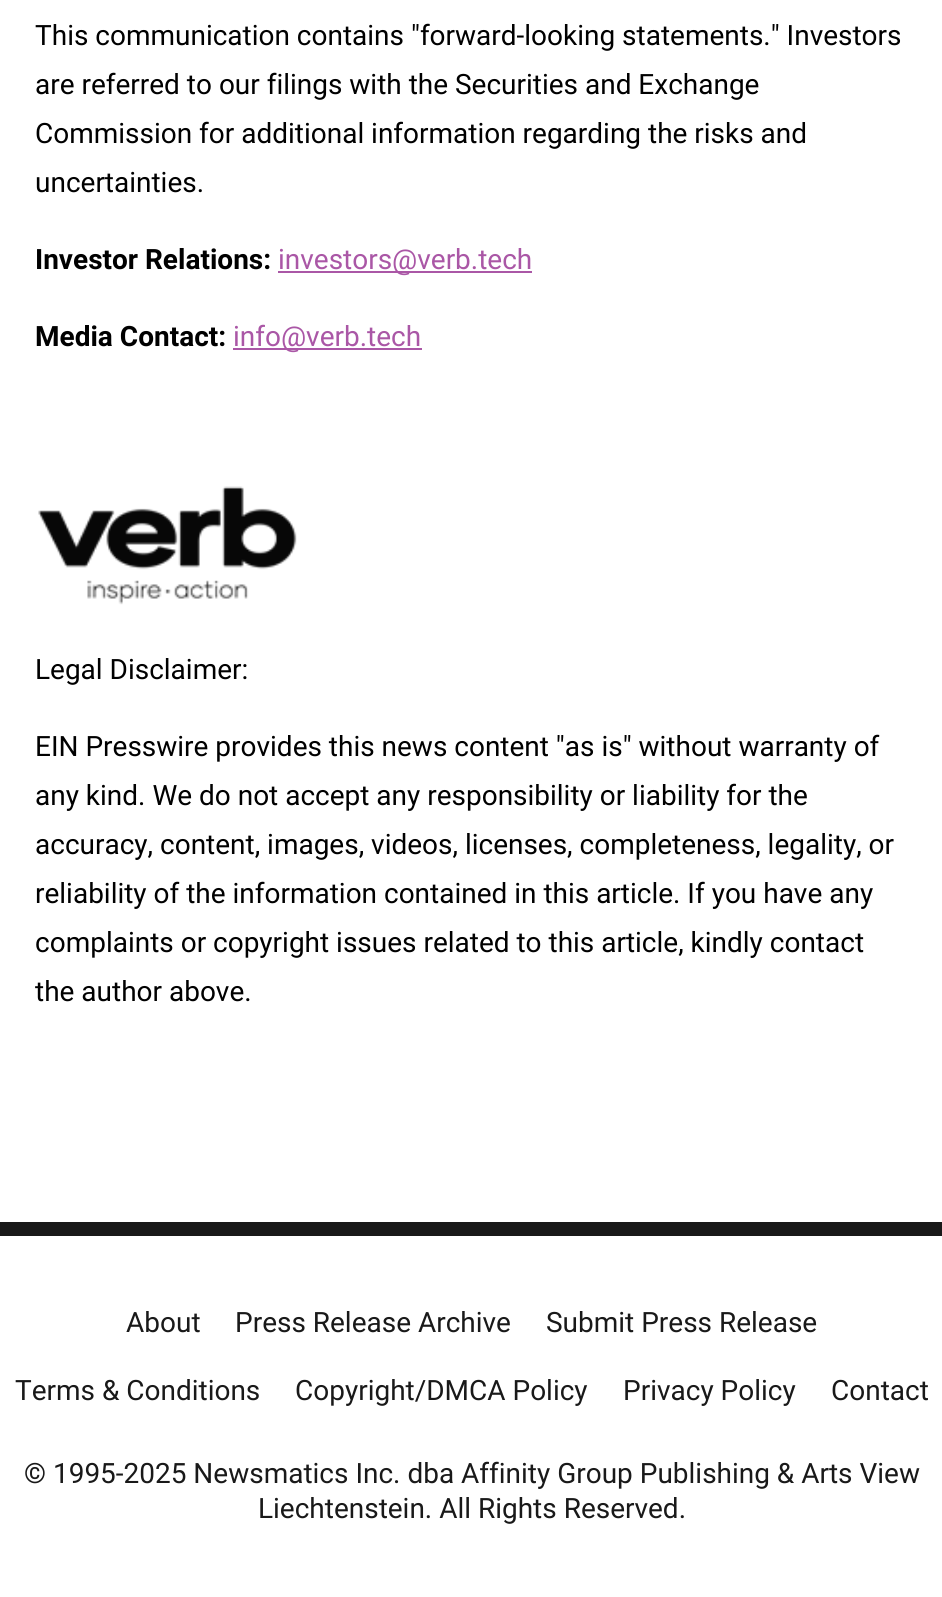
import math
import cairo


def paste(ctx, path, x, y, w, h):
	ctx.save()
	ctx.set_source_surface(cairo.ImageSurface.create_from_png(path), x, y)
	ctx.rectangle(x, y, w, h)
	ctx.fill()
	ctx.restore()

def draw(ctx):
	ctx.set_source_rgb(1, 1, 1)
	ctx.paint()
	ctx.select_font_face('Roboto')
	ctx.set_font_size(28)
	ctx.set_source_rgb(0, 0, 0)
	for x, y, s in [
		(35, 45, 'This communication contains "forward-looking statements." Investors'),
		(35, 94, 'are referred to our filings with the Securities and Exchange'),
		(35, 143, 'Commission for additional information regarding the risks and'),
		(35, 192, 'uncertainties.'),
	]:
		ctx.move_to(x, y)
		ctx.show_text(s)
	ctx.select_font_face('Roboto', cairo.FONT_SLANT_NORMAL, cairo.FONT_WEIGHT_BOLD)
	ctx.move_to(35, 269)
	ctx.show_text('Investor Relations:')
	ctx.set_source_rgb(0.667, 0.341, 0.651)
	ctx.rectangle(278, 271, 254, 2)
	ctx.fill()
	ctx.select_font_face('Roboto')
	ctx.move_to(278, 269)
	ctx.show_text('investors@verb.tech')
	ctx.select_font_face('Roboto', cairo.FONT_SLANT_NORMAL, cairo.FONT_WEIGHT_BOLD)
	ctx.set_source_rgb(0, 0, 0)
	ctx.move_to(35, 346)
	ctx.show_text('Media Contact:')
	ctx.set_source_rgb(0.667, 0.341, 0.651)
	ctx.rectangle(233, 348, 189, 2)
	ctx.fill()
	ctx.select_font_face('Roboto')
	ctx.move_to(233, 346)
	ctx.show_text('info@verb.tech')
	paste(ctx, 'media/1.png', 38, 486, 259, 119)
	ctx.set_source_rgb(0, 0, 0)
	for x, y, s in [
		(35, 679, 'Legal Disclaimer:'),
		(35, 756, 'EIN Presswire provides this news content "as is" without warranty of'),
		(35, 805, 'any kind. We do not accept any responsibility or liability for the'),
		(35, 854, 'accuracy, content, images, videos, licenses, completeness, legality, or'),
		(35, 903, 'reliability of the information contained in this article. If you have any'),
		(35, 952, 'complaints or copyright issues related to this article, kindly contact'),
		(35, 1001, 'the author above.'),
	]:
		ctx.move_to(x, y)
		ctx.show_text(s)
	ctx.set_source_rgb(0.098, 0.098, 0.098)
	ctx.rectangle(0, 1222, 942, 14)
	ctx.fill()
	for x, y, s in [
		(126, 1332, 'About'),
		(235, 1332, 'Press Release Archive'),
		(546, 1332, 'Submit Press Release'),
		(15, 1400, 'Terms & Conditions'),
		(295, 1400, 'Copyright/DMCA Policy'),
		(623, 1400, 'Privacy Policy'),
		(831, 1400, 'Contact'),
		(24, 1483, '© 1995-2025 Newsmatics Inc. dba Affinity Group Publishing & Arts View'),
		(258, 1518, 'Liechtenstein. All Rights Reserved.'),
	]:
		ctx.move_to(x, y)
		ctx.show_text(s)


surface = cairo.ImageSurface(cairo.FORMAT_RGB24, 942, 1597)
ctx = cairo.Context(surface)
options = cairo.FontOptions()
options.set_hint_metrics(cairo.HINT_METRICS_OFF)
options.set_hint_style(cairo.HINT_STYLE_NONE)
ctx.set_font_options(options)
ctx.set_miter_limit(4)
draw(ctx)
surface.write_to_png('image.png')
